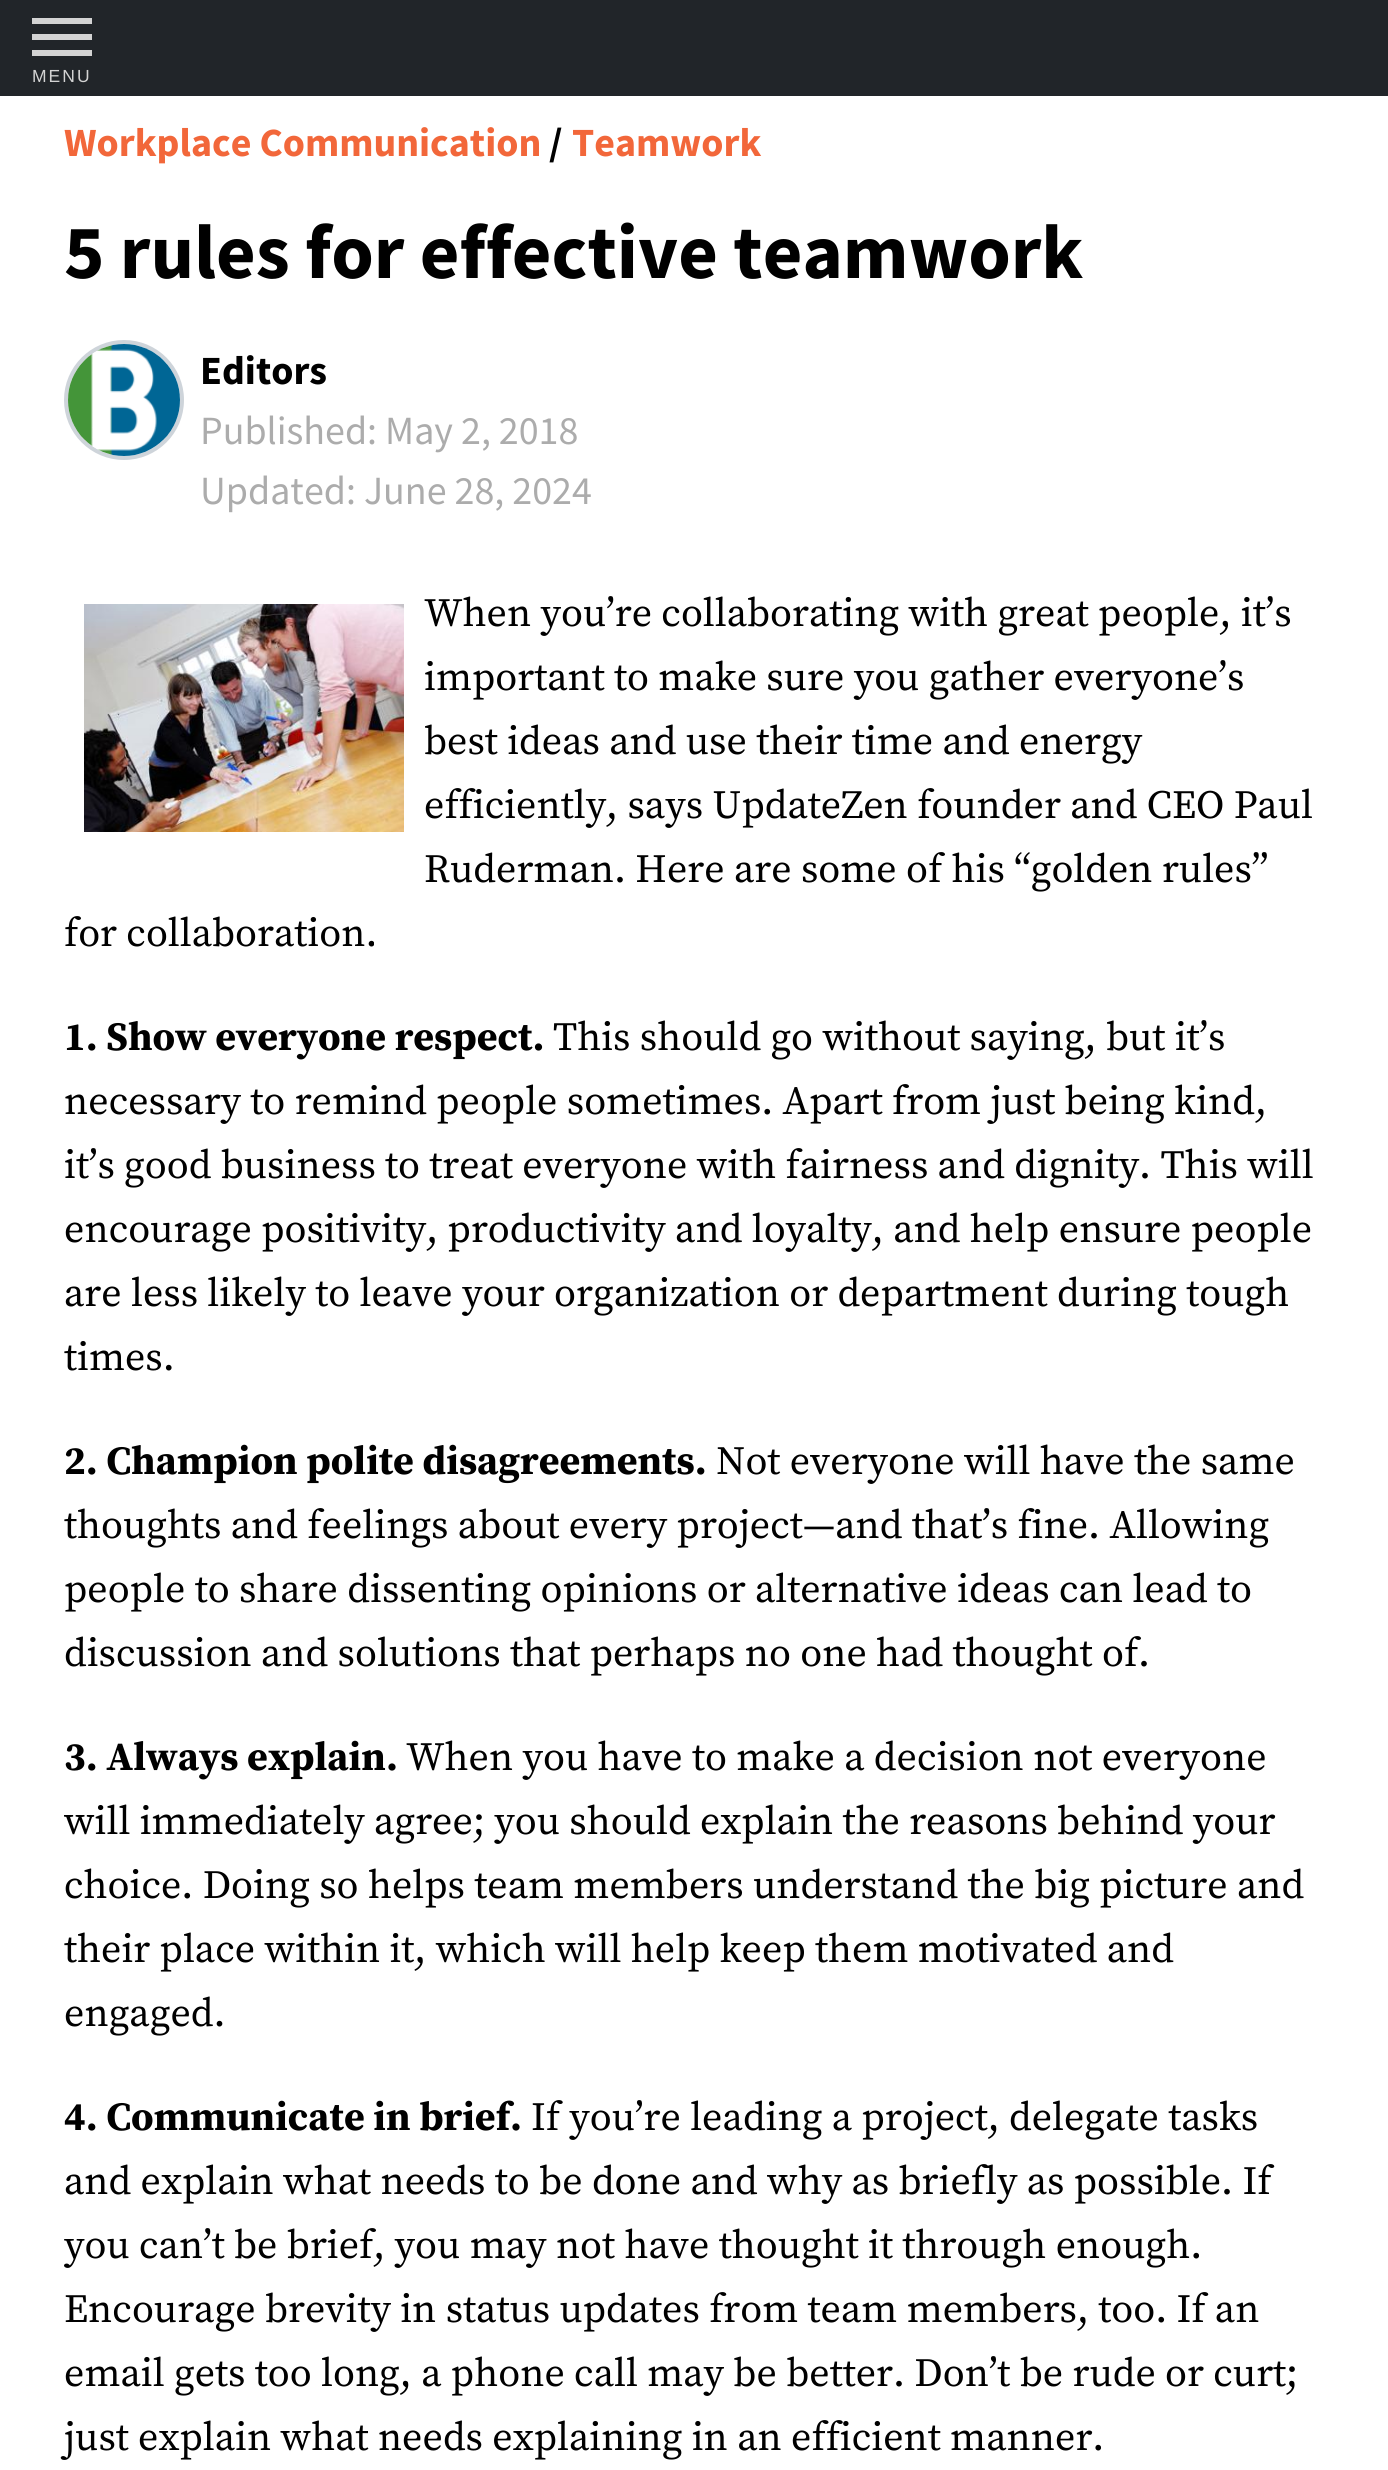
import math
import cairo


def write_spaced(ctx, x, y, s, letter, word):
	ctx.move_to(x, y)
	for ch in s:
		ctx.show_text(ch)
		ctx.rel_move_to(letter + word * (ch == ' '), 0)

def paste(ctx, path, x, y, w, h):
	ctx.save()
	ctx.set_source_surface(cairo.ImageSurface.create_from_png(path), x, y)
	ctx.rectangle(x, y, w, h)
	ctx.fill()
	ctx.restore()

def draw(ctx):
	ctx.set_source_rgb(1, 1, 1)
	ctx.paint()
	ctx.set_source_rgb(0.129, 0.145, 0.161)
	ctx.rectangle(0, 0, 1388, 96)
	ctx.fill()
	ctx.set_source_rgb(0.827, 0.827, 0.827)
	ctx.rectangle(32, 34, 60, 6)
	ctx.rectangle(32, 18, 60, 6)
	ctx.rectangle(32, 50, 60, 6)
	ctx.fill()
	ctx.select_font_face('Liberation Sans')
	ctx.set_font_size(17.5)
	write_spaced(ctx, 32, 82, 'MENU', 2, 0)
	ctx.select_font_face('Source Sans Pro', cairo.FONT_SLANT_NORMAL, cairo.FONT_WEIGHT_BOLD)
	ctx.set_font_size(40)
	ctx.set_source_rgb(0.949, 0.404, 0.227)
	ctx.move_to(64, 156)
	ctx.show_text('Workplace Communication')
	ctx.set_source_rgb(0, 0, 0)
	ctx.move_to(549, 156)
	ctx.show_text('/')
	ctx.set_source_rgb(0.949, 0.404, 0.227)
	ctx.move_to(572, 156)
	ctx.show_text('Teamwork')
	ctx.set_font_size(76.75)
	ctx.set_source_rgb(0, 0, 0)
	ctx.move_to(64, 278)
	ctx.show_text('5 rules for effective teamwork')
	ctx.new_path()
	ctx.arc(124, 400, 58, 0, 2 * math.pi)
	ctx.set_source_rgb(0.808, 0.831, 0.855)
	ctx.set_line_width(4)
	ctx.stroke()
	paste(ctx, 'media/1.png', 68, 344, 112, 112)
	ctx.set_font_size(40)
	ctx.set_source_rgb(0, 0, 0)
	ctx.move_to(200, 384)
	ctx.show_text('Editors')
	ctx.select_font_face('Source Sans Pro')
	ctx.set_source_rgb(0.675, 0.675, 0.675)
	ctx.move_to(200, 444)
	ctx.show_text('Published: May 2, 2018')
	ctx.move_to(200, 504)
	ctx.show_text('Updated: June 28, 2024')
	paste(ctx, 'media/2.png', 84, 604, 320, 228)
	ctx.select_font_face('Source Serif Pro')
	ctx.set_source_rgb(0, 0, 0)
	for x, y, s in [
		(424, 626, 'When you’re collaborating with great people, it’s'),
		(424, 690, 'important to make sure you gather everyone’s'),
		(424, 754, 'best ideas and use their time and energy'),
		(424, 818, 'efficiently, says UpdateZen founder and CEO Paul'),
		(424, 882, 'Ruderman. Here are some of his “golden rules”'),
		(64, 946, 'for collaboration.'),
	]:
		ctx.move_to(x, y)
		ctx.show_text(s)
	ctx.select_font_face('Source Serif Pro', cairo.FONT_SLANT_NORMAL, cairo.FONT_WEIGHT_BOLD)
	ctx.move_to(64, 1050)
	ctx.show_text('1. Show everyone respect.')
	ctx.select_font_face('Source Serif Pro')
	for x, y, s in [
		(553, 1050, 'This should go without saying, but it’s'),
		(64, 1114, 'necessary to remind people sometimes. Apart from just being kind,'),
		(64, 1178, 'it’s good business to treat everyone with fairness and dignity. This will'),
		(64, 1242, 'encourage positivity, productivity and loyalty, and help ensure people'),
		(64, 1306, 'are less likely to leave your organization or department during tough'),
		(64, 1370, 'times.'),
	]:
		ctx.move_to(x, y)
		ctx.show_text(s)
	ctx.select_font_face('Source Serif Pro', cairo.FONT_SLANT_NORMAL, cairo.FONT_WEIGHT_BOLD)
	ctx.move_to(64, 1474)
	ctx.show_text('2. Champion polite disagreements.')
	ctx.select_font_face('Source Serif Pro')
	for x, y, s in [
		(716, 1474, 'Not everyone will have the same'),
		(64, 1538, 'thoughts and feelings about every project—and that’s fine. Allowing'),
		(64, 1602, 'people to share dissenting opinions or alternative ideas can lead to'),
		(64, 1666, 'discussion and solutions that perhaps no one had thought of.'),
	]:
		ctx.move_to(x, y)
		ctx.show_text(s)
	ctx.select_font_face('Source Serif Pro', cairo.FONT_SLANT_NORMAL, cairo.FONT_WEIGHT_BOLD)
	ctx.move_to(64, 1770)
	ctx.show_text('3. Always explain.')
	ctx.select_font_face('Source Serif Pro')
	for x, y, s in [
		(406, 1770, 'When you have to make a decision not everyone'),
		(64, 1834, 'will immediately agree; you should explain the reasons behind your'),
		(64, 1898, 'choice. Doing so helps team members understand the big picture and'),
		(64, 1962, 'their place within it, which will help keep them motivated and'),
		(64, 2026, 'engaged.'),
	]:
		ctx.move_to(x, y)
		ctx.show_text(s)
	ctx.select_font_face('Source Serif Pro', cairo.FONT_SLANT_NORMAL, cairo.FONT_WEIGHT_BOLD)
	ctx.move_to(64, 2130)
	ctx.show_text('4. Communicate in brief.')
	ctx.select_font_face('Source Serif Pro')
	for x, y, s in [
		(531, 2130, 'If you’re leading a project, delegate tasks'),
		(64, 2194, 'and explain what needs to be done and why as briefly as possible. If'),
		(64, 2258, 'you can’t be brief, you may not have thought it through enough.'),
		(64, 2322, 'Encourage brevity in status updates from team members, too. If an'),
		(64, 2386, 'email gets too long, a phone call may be better. Don’t be rude or curt;'),
		(64, 2450, 'just explain what needs explaining in an efficient manner.'),
	]:
		ctx.move_to(x, y)
		ctx.show_text(s)


surface = cairo.ImageSurface(cairo.FORMAT_RGB24, 1388, 2470)
ctx = cairo.Context(surface)
options = cairo.FontOptions()
options.set_hint_metrics(cairo.HINT_METRICS_OFF)
options.set_hint_style(cairo.HINT_STYLE_NONE)
ctx.set_font_options(options)
ctx.set_miter_limit(4)
draw(ctx)
surface.write_to_png('image.png')
